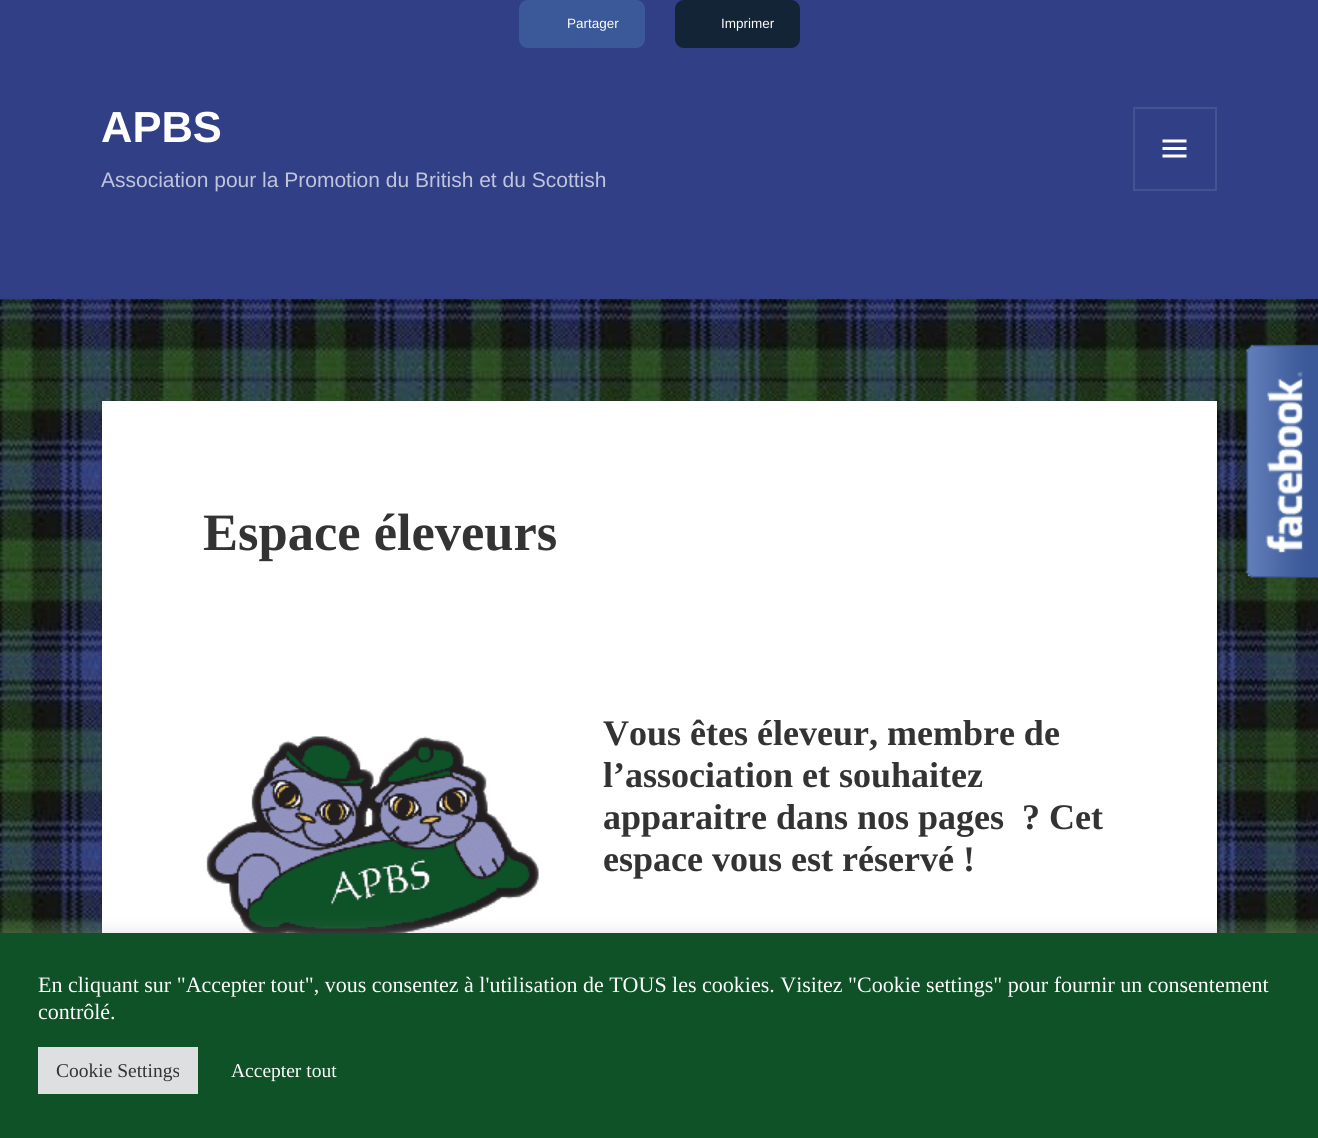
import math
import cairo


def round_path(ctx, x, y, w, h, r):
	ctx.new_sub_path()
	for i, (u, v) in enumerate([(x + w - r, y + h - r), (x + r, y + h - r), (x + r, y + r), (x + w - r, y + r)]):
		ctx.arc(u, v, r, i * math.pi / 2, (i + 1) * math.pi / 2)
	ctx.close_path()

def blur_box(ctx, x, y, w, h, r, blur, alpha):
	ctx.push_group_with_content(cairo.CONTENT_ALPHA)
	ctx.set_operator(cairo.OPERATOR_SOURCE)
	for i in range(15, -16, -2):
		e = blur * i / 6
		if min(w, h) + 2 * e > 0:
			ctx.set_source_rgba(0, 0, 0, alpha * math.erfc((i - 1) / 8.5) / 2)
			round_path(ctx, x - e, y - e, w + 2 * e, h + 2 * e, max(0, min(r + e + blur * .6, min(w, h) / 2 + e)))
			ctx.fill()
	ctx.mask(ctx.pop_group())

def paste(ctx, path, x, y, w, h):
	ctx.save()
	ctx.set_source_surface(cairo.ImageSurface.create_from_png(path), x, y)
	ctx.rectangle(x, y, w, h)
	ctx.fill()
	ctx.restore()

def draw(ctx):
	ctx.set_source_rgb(1, 1, 1)
	ctx.paint()
	paste(ctx, 'media/1.png', 0, 299, 1318, 634)
	ctx.set_source_rgb(0.192, 0.247, 0.529)
	ctx.rectangle(0, 0, 1318, 297)
	ctx.fill()
	ctx.set_source_rgb(0.231, 0.349, 0.596)
	round_path(ctx, 519, 0, 126, 48, 9)
	ctx.fill()
	ctx.select_font_face('Liberation Sans')
	ctx.set_font_size(13.5)
	ctx.set_source_rgb(1, 1, 1)
	ctx.move_to(567, 28)
	ctx.show_text('Partager')
	ctx.set_source_rgb(0.071, 0.141, 0.208)
	round_path(ctx, 675, 0, 125, 48, 9)
	ctx.fill()
	ctx.set_source_rgb(1, 1, 1)
	ctx.move_to(721, 28)
	ctx.show_text('Imprimer')
	ctx.set_source_rgb(0.192, 0.243, 0.498)
	ctx.rectangle(0, 297, 1318, 2)
	ctx.fill()
	ctx.select_font_face('Liberation Sans', cairo.FONT_SLANT_NORMAL, cairo.FONT_WEIGHT_BOLD)
	ctx.set_font_size(43.5)
	ctx.set_source_rgb(1, 1, 1)
	ctx.move_to(101, 142)
	ctx.show_text('APBS')
	ctx.rectangle(1134, 108, 82, 82)
	ctx.set_source_rgb(0.275, 0.322, 0.576)
	ctx.stroke()
	paste(ctx, 'media/2.png', 1162, 139, 25, 19)
	ctx.select_font_face('Liberation Sans')
	ctx.set_font_size(21)
	ctx.set_source_rgb(0.757, 0.773, 0.859)
	ctx.move_to(101, 187)
	ctx.show_text('Association pour la Promotion du British et du Scottish')
	ctx.set_source_rgb(0, 0, 0)
	blur_box(ctx, 102, 401, 1115, 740, 0, 1, 0.15)
	ctx.set_source_rgb(1, 1, 1)
	ctx.rectangle(102, 401, 1115, 532)
	ctx.fill()
	ctx.select_font_face('Liberation Serif', cairo.FONT_SLANT_NORMAL, cairo.FONT_WEIGHT_BOLD)
	ctx.set_font_size(52.5)
	ctx.set_source_rgb(0.2, 0.2, 0.2)
	ctx.move_to(203, 550)
	ctx.show_text('Espace éleveurs')
	paste(ctx, 'media/3.png', 206, 736, 333, 197)
	ctx.set_font_size(36)
	for x, y, s in [
		(603, 745, 'Vous êtes éleveur, membre de'),
		(603, 787, 'l’association et souhaitez'),
		(603, 829, 'apparaitre dans nos pages  ? Cet'),
		(603, 871, 'espace vous est réservé !'),
	]:
		ctx.move_to(x, y)
		ctx.show_text(s)
	paste(ctx, 'media/4.png', 1246, 344, 72, 234)
	ctx.set_source_rgb(0.675, 0.671, 0.671)
	blur_box(ctx, 0, 932, 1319, 205, 0, 7.5, 0.3)
	ctx.set_source_rgb(0.059, 0.322, 0.157)
	ctx.rectangle(0, 933, 1318, 205)
	ctx.fill()
	ctx.select_font_face('Liberation Serif')
	ctx.set_font_size(22)
	ctx.set_source_rgb(1, 1, 1)
	ctx.move_to(38, 992)
	ctx.show_text('En cliquant sur "Accepter tout", vous consentez à l\'utilisation de TOUS les cookies. Visitez "Cookie settings" pour fournir un consentement')
	ctx.move_to(38, 1019)
	ctx.show_text('contrôlé.')
	ctx.set_source_rgb(0.871, 0.875, 0.878)
	ctx.rectangle(38, 1047, 160, 47)
	ctx.fill()
	ctx.set_font_size(19.5)
	ctx.set_source_rgb(0.2, 0.2, 0.2)
	ctx.move_to(56, 1077)
	ctx.show_text('Cookie Settings')
	ctx.set_source_rgb(1, 1, 1)
	ctx.move_to(231, 1077)
	ctx.show_text('Accepter tout')


surface = cairo.ImageSurface(cairo.FORMAT_RGB24, 1318, 1138)
ctx = cairo.Context(surface)
options = cairo.FontOptions()
options.set_hint_metrics(cairo.HINT_METRICS_OFF)
options.set_hint_style(cairo.HINT_STYLE_NONE)
ctx.set_font_options(options)
ctx.set_miter_limit(4)
draw(ctx)
surface.write_to_png('image.png')
